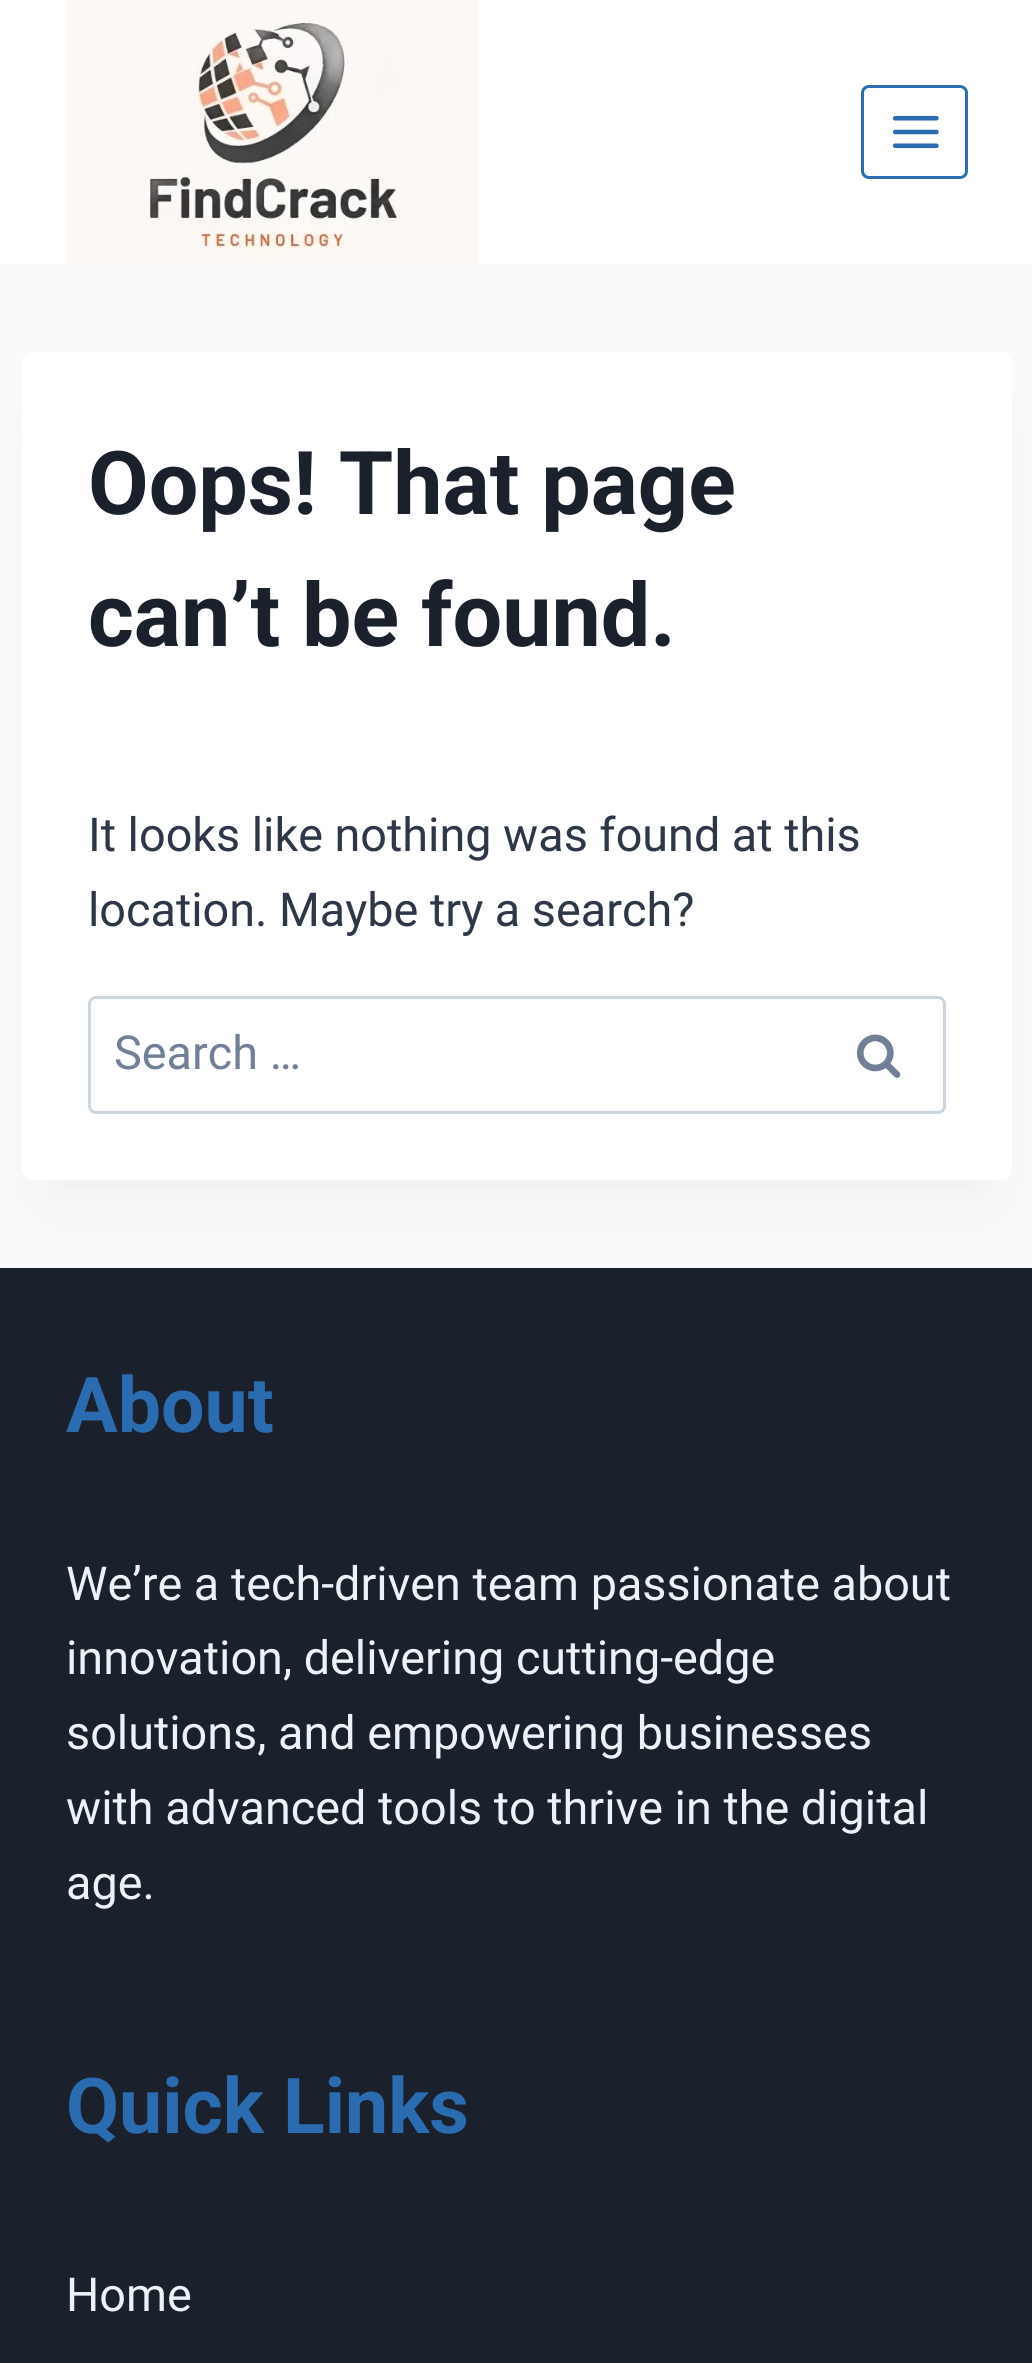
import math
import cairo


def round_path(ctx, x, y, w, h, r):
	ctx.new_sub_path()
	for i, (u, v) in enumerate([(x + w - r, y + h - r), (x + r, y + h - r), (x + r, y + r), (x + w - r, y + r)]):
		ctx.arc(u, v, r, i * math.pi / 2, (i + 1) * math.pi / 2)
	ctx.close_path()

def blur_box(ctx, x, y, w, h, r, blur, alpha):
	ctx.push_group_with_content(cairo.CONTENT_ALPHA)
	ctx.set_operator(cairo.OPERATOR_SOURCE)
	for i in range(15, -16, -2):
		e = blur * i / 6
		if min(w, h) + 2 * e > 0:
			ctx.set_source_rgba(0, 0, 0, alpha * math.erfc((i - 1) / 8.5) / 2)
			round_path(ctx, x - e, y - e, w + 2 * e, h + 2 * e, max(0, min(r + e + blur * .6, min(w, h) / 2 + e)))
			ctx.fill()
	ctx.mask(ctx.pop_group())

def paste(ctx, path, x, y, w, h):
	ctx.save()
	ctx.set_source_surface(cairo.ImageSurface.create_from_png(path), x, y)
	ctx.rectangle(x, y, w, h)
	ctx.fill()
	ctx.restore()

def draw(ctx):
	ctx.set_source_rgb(0.969, 0.98, 0.988)
	ctx.paint()
	ctx.set_source_rgb(1, 1, 1)
	ctx.rectangle(0, 0, 1032, 264)
	ctx.fill()
	paste(ctx, 'media/1.png', 66, 0, 413, 264)
	round_path(ctx, 862.5, 86.5, 104, 91, 6.5)
	ctx.set_source_rgb(0.169, 0.424, 0.69)
	ctx.set_line_width(3)
	ctx.stroke()
	paste(ctx, 'media/2.png', 892, 115, 47, 34)
	ctx.set_source_rgb(0.102, 0.125, 0.173)
	ctx.rectangle(0, 1268, 1032, 1095)
	ctx.fill()
	ctx.set_source_rgb(0, 0, 0)
	blur_box(ctx, 50, 421, 935, 773, 0, 34.5, 0.05)
	ctx.set_source_rgb(1, 1, 1)
	round_path(ctx, 22, 352, 990, 828, 11)
	ctx.fill()
	ctx.select_font_face('Roboto', cairo.FONT_SLANT_NORMAL, cairo.FONT_WEIGHT_BOLD)
	ctx.set_font_size(88)
	ctx.set_source_rgb(0.102, 0.125, 0.173)
	ctx.move_to(88, 514)
	ctx.show_text('Oops! That page')
	ctx.move_to(88, 646)
	ctx.show_text('can’t be found.')
	ctx.select_font_face('Roboto')
	ctx.set_font_size(46.75)
	ctx.set_source_rgb(0.176, 0.216, 0.282)
	ctx.move_to(88, 851)
	ctx.show_text('It looks like nothing was found at this')
	ctx.move_to(88, 926)
	ctx.show_text('location. Maybe try a search?')
	round_path(ctx, 89.5, 997.5, 855, 115, 6.5)
	ctx.set_source_rgb(0.796, 0.835, 0.878)
	ctx.stroke()
	ctx.set_source_rgb(0.443, 0.502, 0.588)
	ctx.move_to(114, 1069)
	ctx.show_text('Search …')
	paste(ctx, 'media/3.png', 856, 1034, 45, 44)
	ctx.select_font_face('Roboto', cairo.FONT_SLANT_NORMAL, cairo.FONT_WEIGHT_BOLD)
	ctx.set_font_size(77)
	ctx.set_source_rgb(0.169, 0.424, 0.69)
	ctx.move_to(66, 1432)
	ctx.show_text('About')
	ctx.select_font_face('Roboto')
	ctx.set_font_size(46.75)
	ctx.set_source_rgb(0.929, 0.949, 0.969)
	for x, y, s in [
		(66, 1600, 'We’re a tech-driven team passionate about'),
		(66, 1674, 'innovation, delivering cutting-edge'),
		(66, 1749, 'solutions, and empowering businesses'),
		(66, 1824, 'with advanced tools to thrive in the digital'),
		(66, 1899, 'age.'),
	]:
		ctx.move_to(x, y)
		ctx.show_text(s)
	ctx.select_font_face('Roboto', cairo.FONT_SLANT_NORMAL, cairo.FONT_WEIGHT_BOLD)
	ctx.set_font_size(77)
	ctx.set_source_rgb(0.169, 0.424, 0.69)
	ctx.move_to(66, 2133)
	ctx.show_text('Quick Links')
	ctx.select_font_face('Roboto')
	ctx.set_font_size(46.75)
	ctx.set_source_rgb(0.929, 0.949, 0.969)
	ctx.move_to(66, 2311)
	ctx.show_text('Home')


surface = cairo.ImageSurface(cairo.FORMAT_RGB24, 1032, 2363)
ctx = cairo.Context(surface)
options = cairo.FontOptions()
options.set_hint_metrics(cairo.HINT_METRICS_OFF)
options.set_hint_style(cairo.HINT_STYLE_NONE)
ctx.set_font_options(options)
ctx.set_miter_limit(4)
draw(ctx)
surface.write_to_png('image.png')
